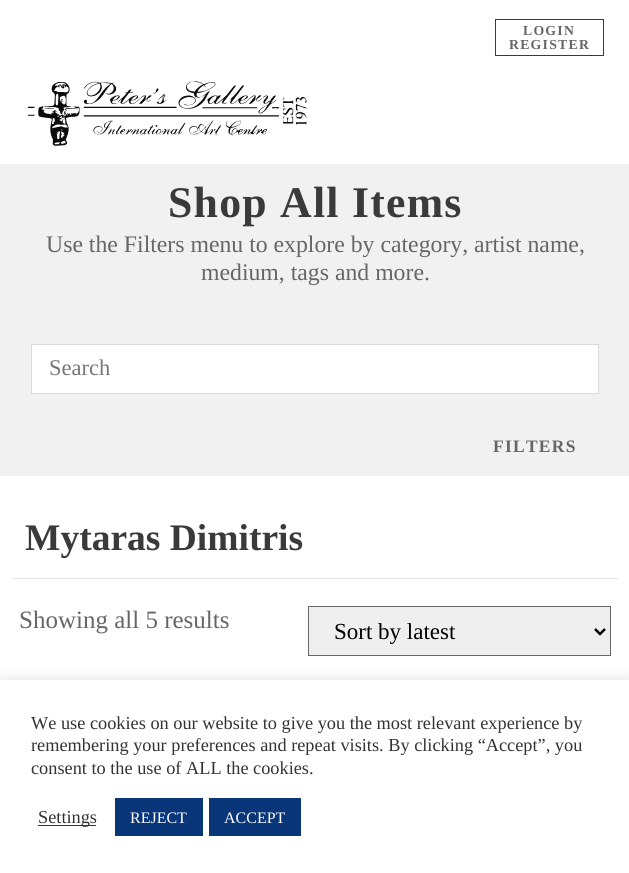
import math
import cairo


def write_spaced(ctx, x, y, s, letter, word):
	ctx.move_to(x, y)
	for ch in s:
		ctx.show_text(ch)
		ctx.rel_move_to(letter + word * (ch == ' '), 0)

def round_path(ctx, x, y, w, h, r):
	ctx.new_sub_path()
	for i, (u, v) in enumerate([(x + w - r, y + h - r), (x + r, y + h - r), (x + r, y + r), (x + w - r, y + r)]):
		ctx.arc(u, v, r, i * math.pi / 2, (i + 1) * math.pi / 2)
	ctx.close_path()

def blur_box(ctx, x, y, w, h, r, blur, alpha):
	ctx.push_group_with_content(cairo.CONTENT_ALPHA)
	ctx.set_operator(cairo.OPERATOR_SOURCE)
	for i in range(15, -16, -2):
		e = blur * i / 6
		if min(w, h) + 2 * e > 0:
			ctx.set_source_rgba(0, 0, 0, alpha * math.erfc((i - 1) / 8.5) / 2)
			round_path(ctx, x - e, y - e, w + 2 * e, h + 2 * e, max(0, min(r + e + blur * .6, min(w, h) / 2 + e)))
			ctx.fill()
	ctx.mask(ctx.pop_group())

def paste(ctx, path, x, y, w, h):
	ctx.save()
	ctx.set_source_surface(cairo.ImageSurface.create_from_png(path), x, y)
	ctx.rectangle(x, y, w, h)
	ctx.fill()
	ctx.restore()

def draw(ctx):
	ctx.set_source_rgb(1, 1, 1)
	ctx.paint()
	ctx.rectangle(495.5, 19.5, 108, 36)
	ctx.set_source_rgb(0.227, 0.227, 0.227)
	ctx.set_line_width(1)
	ctx.stroke()
	ctx.select_font_face('Liberation Serif', cairo.FONT_SLANT_NORMAL, cairo.FONT_WEIGHT_BOLD)
	ctx.set_font_size(13.75)
	ctx.set_source_rgb(0.404, 0.4, 0.4)
	write_spaced(ctx, 523, 35, 'LOGIN', 1.25, 0)
	write_spaced(ctx, 509, 49, 'REGISTER', 1.25, 0)
	paste(ctx, 'media/1.png', 27, 81, 280, 65)
	ctx.set_source_rgb(0.945, 0.945, 0.945)
	ctx.rectangle(0, 164, 629, 312)
	ctx.fill()
	ctx.set_font_size(43.75)
	ctx.set_source_rgb(0.227, 0.227, 0.227)
	write_spaced(ctx, 168, 217, 'Shop All Items', 1.25, 0)
	ctx.select_font_face('Liberation Serif')
	ctx.set_font_size(23.75)
	ctx.set_source_rgb(0.404, 0.4, 0.4)
	ctx.move_to(46, 252)
	ctx.show_text('Use the Filters menu to explore by category, artist name,')
	ctx.move_to(201, 280)
	ctx.show_text('medium, tags and more.')
	ctx.set_source_rgb(1, 1, 1)
	ctx.rectangle(31.5, 344.5, 567, 49)
	ctx.fill_preserve()
	ctx.set_source_rgb(0.859, 0.859, 0.859)
	ctx.stroke()
	ctx.set_font_size(22.5)
	ctx.set_source_rgb(0.463, 0.463, 0.463)
	ctx.move_to(49, 375)
	ctx.show_text('Search')
	ctx.select_font_face('Liberation Serif', cairo.FONT_SLANT_NORMAL, cairo.FONT_WEIGHT_BOLD)
	ctx.set_font_size(17.5)
	ctx.set_source_rgb(0.404, 0.4, 0.4)
	write_spaced(ctx, 493, 452, 'FILTERS', 1.25, 0)
	ctx.set_font_size(37.5)
	ctx.set_source_rgb(0.227, 0.227, 0.227)
	ctx.move_to(25, 550)
	ctx.show_text('Mytaras Dimitris')
	ctx.set_source_rgb(0.898, 0.898, 0.898)
	ctx.rectangle(13, 578, 605, 1)
	ctx.fill()
	ctx.select_font_face('Liberation Serif')
	ctx.set_font_size(25)
	ctx.set_source_rgb(0.404, 0.4, 0.4)
	ctx.move_to(19, 628)
	ctx.show_text('Showing all 5 results')
	ctx.set_source_rgb(0.937, 0.937, 0.937)
	ctx.rectangle(308.5, 606.5, 302, 49)
	ctx.fill_preserve()
	ctx.set_source_rgb(0.4, 0.4, 0.4)
	ctx.stroke()
	ctx.new_path()
	ctx.move_to(595, 629)
	ctx.line_to(600, 634)
	ctx.line_to(605, 629)
	ctx.set_source_rgb(0, 0, 0)
	ctx.set_line_width(2.5)
	ctx.stroke()
	ctx.set_font_size(23)
	ctx.move_to(334, 639)
	ctx.show_text('Sort by latest')
	ctx.set_source_rgb(0.675, 0.671, 0.671)
	blur_box(ctx, 0, 679, 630, 194, 0, 6, 0.3)
	ctx.set_source_rgb(1, 1, 1)
	ctx.rectangle(0, 680, 629, 193)
	ctx.fill()
	ctx.set_font_size(18.3)
	ctx.set_source_rgb(0.2, 0.2, 0.2)
	for x, y, s in [
		(31, 729, 'We use cookies on our website to give you the most relevant experience by'),
		(31, 751, 'remembering your preferences and repeat visits. By clicking “Accept”, you'),
		(31, 774, 'consent to the use of ALL the cookies.'),
	]:
		ctx.move_to(x, y)
		ctx.show_text(s)
	ctx.rectangle(38, 825, 58, 1)
	ctx.fill()
	ctx.move_to(38, 823)
	ctx.show_text('Settings')
	ctx.set_source_rgb(0.035, 0.212, 0.475)
	ctx.rectangle(115, 798, 88, 38)
	ctx.fill()
	ctx.set_font_size(16)
	ctx.set_source_rgb(1, 1, 1)
	ctx.move_to(130, 823)
	ctx.show_text('REJECT')
	ctx.set_source_rgb(0.035, 0.212, 0.475)
	ctx.rectangle(209, 798, 92, 38)
	ctx.fill()
	ctx.set_source_rgb(1, 1, 1)
	ctx.move_to(224, 823)
	ctx.show_text('ACCEPT')


surface = cairo.ImageSurface(cairo.FORMAT_RGB24, 629, 873)
ctx = cairo.Context(surface)
options = cairo.FontOptions()
options.set_hint_metrics(cairo.HINT_METRICS_OFF)
options.set_hint_style(cairo.HINT_STYLE_NONE)
ctx.set_font_options(options)
ctx.set_miter_limit(4)
draw(ctx)
surface.write_to_png('image.png')
